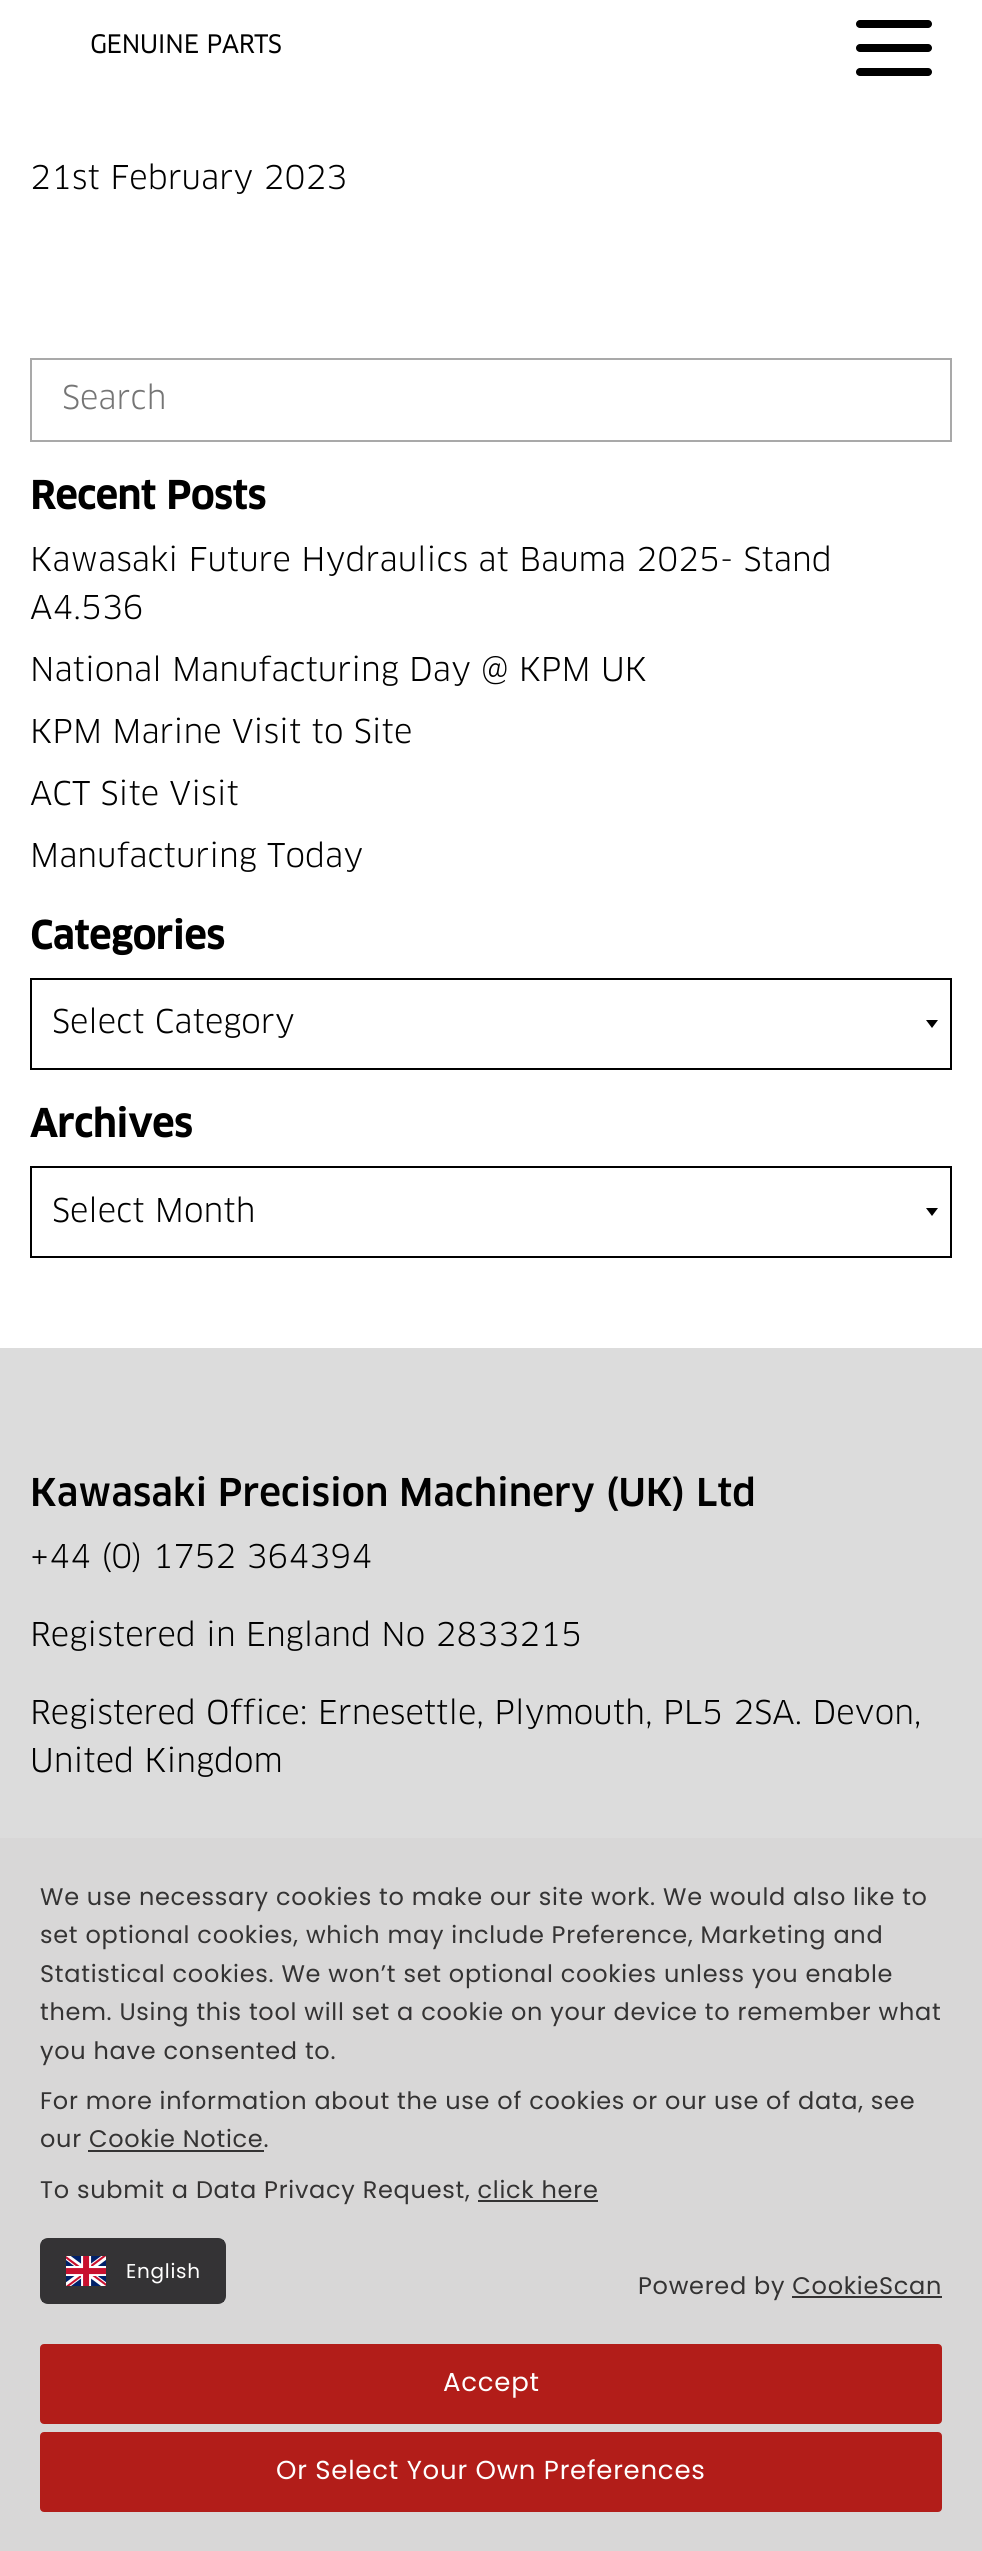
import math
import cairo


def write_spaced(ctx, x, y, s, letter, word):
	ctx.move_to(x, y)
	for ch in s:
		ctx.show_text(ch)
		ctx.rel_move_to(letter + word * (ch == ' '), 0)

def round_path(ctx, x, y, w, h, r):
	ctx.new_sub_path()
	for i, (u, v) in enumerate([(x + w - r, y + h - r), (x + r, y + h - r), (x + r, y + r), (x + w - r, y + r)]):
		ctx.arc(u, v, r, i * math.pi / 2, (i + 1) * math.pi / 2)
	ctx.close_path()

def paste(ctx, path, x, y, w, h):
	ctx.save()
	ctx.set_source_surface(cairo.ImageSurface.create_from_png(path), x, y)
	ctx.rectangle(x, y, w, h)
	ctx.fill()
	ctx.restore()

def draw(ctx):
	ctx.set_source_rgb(1, 1, 1)
	ctx.paint()
	ctx.select_font_face('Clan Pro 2', cairo.FONT_SLANT_NORMAL, cairo.FONT_WEIGHT_BOLD)
	ctx.set_font_size(24)
	ctx.set_source_rgb(0, 0, 0)
	ctx.move_to(90, 53)
	ctx.show_text('GENUINE PARTS')
	round_path(ctx, 856, 20, 76, 8, 4)
	ctx.fill()
	round_path(ctx, 856, 44, 76, 8, 4)
	ctx.fill()
	round_path(ctx, 856, 68, 76, 8, 4)
	ctx.fill()
	ctx.select_font_face('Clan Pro')
	ctx.set_font_size(32)
	ctx.move_to(30, 189)
	ctx.show_text('21st February 2023')
	ctx.rectangle(31, 359, 920, 82)
	ctx.set_source_rgb(0.663, 0.663, 0.663)
	ctx.stroke()
	ctx.set_source_rgb(0.459, 0.459, 0.459)
	ctx.move_to(62, 409)
	ctx.show_text('Search')
	ctx.select_font_face('Clan Pro', cairo.FONT_SLANT_NORMAL, cairo.FONT_WEIGHT_BOLD)
	ctx.set_font_size(37.4)
	ctx.set_source_rgb(0, 0, 0)
	ctx.move_to(30, 509)
	ctx.show_text('Recent Posts')
	ctx.select_font_face('Clan Pro')
	ctx.set_font_size(32)
	for x, y, s in [
		(30, 571, 'Kawasaki Future Hydraulics at Bauma 2025- Stand'),
		(30, 619, 'A4.536'),
		(30, 681, 'National Manufacturing Day @ KPM UK'),
		(30, 743, 'KPM Marine Visit to Site'),
		(30, 805, 'ACT Site Visit'),
		(30, 867, 'Manufacturing Today'),
	]:
		ctx.move_to(x, y)
		ctx.show_text(s)
	ctx.select_font_face('Clan Pro', cairo.FONT_SLANT_NORMAL, cairo.FONT_WEIGHT_BOLD)
	ctx.set_font_size(37.4)
	ctx.move_to(30, 949)
	ctx.show_text('Categories')
	ctx.new_path()
	ctx.move_to(926, 1020)
	ctx.line_to(938, 1020)
	ctx.line_to(932, 1028)
	ctx.fill()
	ctx.rectangle(31, 979, 920, 90)
	ctx.stroke()
	ctx.select_font_face('Clan Pro')
	ctx.set_font_size(32)
	ctx.move_to(52, 1033)
	ctx.show_text('Select Category')
	ctx.select_font_face('Clan Pro', cairo.FONT_SLANT_NORMAL, cairo.FONT_WEIGHT_BOLD)
	ctx.set_font_size(37.4)
	ctx.move_to(30, 1137)
	ctx.show_text('Archives')
	ctx.new_path()
	ctx.move_to(926, 1208)
	ctx.line_to(938, 1208)
	ctx.line_to(932, 1216)
	ctx.fill()
	ctx.rectangle(31, 1167, 920, 90)
	ctx.stroke()
	ctx.select_font_face('Clan Pro')
	ctx.set_font_size(32)
	ctx.move_to(52, 1222)
	ctx.show_text('Select Month')
	ctx.set_source_rgb(0.863, 0.863, 0.863)
	ctx.rectangle(0, 1348, 982, 490)
	ctx.fill()
	ctx.select_font_face('Clan Pro Medium')
	ctx.set_font_size(37.4)
	ctx.set_source_rgb(0, 0, 0)
	ctx.move_to(30, 1506)
	ctx.show_text('Kawasaki Precision Machinery (UK) Ltd')
	ctx.select_font_face('Clan Pro')
	ctx.set_font_size(32)
	for x, y, s in [
		(30, 1568, '+44 (0) 1752 364394'),
		(30, 1646, 'Registered in England No 2833215'),
		(30, 1724, 'Registered Office: Ernesettle, Plymouth, PL5 2SA. Devon,'),
		(30, 1772, 'United Kingdom'),
	]:
		ctx.move_to(x, y)
		ctx.show_text(s)
	ctx.set_source_rgb(0.847, 0.843, 0.843)
	ctx.rectangle(0, 1838, 982, 713)
	ctx.fill()
	ctx.select_font_face('Poppins')
	ctx.set_font_size(24)
	ctx.set_source_rgb(0.204, 0.2, 0.2)
	for x, y, s in [
		(40, 1905, 'We use necessary cookies to make our site work. We would also like to'),
		(40, 1943, 'set optional cookies, which may include Preference, Marketing and'),
		(40, 1982, 'Statistical cookies. We won’t set optional cookies unless you enable'),
		(40, 2020, 'them. Using this tool will set a cookie on your device to remember what'),
		(40, 2059, 'you have consented to.'),
		(40, 2109, 'For more information about the use of cookies or our use of data, see'),
		(40, 2147, 'our Cookie Notice.'),
	]:
		write_spaced(ctx, x, y, s, 0.72, 0)
	ctx.rectangle(88, 2150, 176, 2)
	ctx.fill()
	write_spaced(ctx, 40, 2198, 'To submit a Data Privacy Request, click here', 0.72, 0)
	ctx.rectangle(478, 2200, 120, 2)
	ctx.fill()
	ctx.set_source_rgb(0.204, 0.2, 0.208)
	round_path(ctx, 40, 2238, 186, 66, 8)
	ctx.fill()
	ctx.rectangle(42, 2240, 182, 62)
	ctx.fill()
	paste(ctx, 'media/1.png', 66, 2256, 40, 30)
	ctx.set_font_size(20)
	ctx.set_source_rgb(1, 1, 1)
	write_spaced(ctx, 126, 2278, 'English', 0.72, 0)
	ctx.set_font_size(24)
	ctx.set_source_rgb(0.204, 0.2, 0.2)
	write_spaced(ctx, 638, 2294, 'Powered by CookieScan', 0.72, 0)
	ctx.rectangle(792, 2296, 150, 2)
	ctx.fill()
	ctx.set_source_rgb(0.698, 0.114, 0.098)
	round_path(ctx, 41, 2345, 900, 78, 3)
	ctx.fill_preserve()
	ctx.stroke()
	ctx.set_font_size(26)
	ctx.set_source_rgb(1, 1, 1)
	write_spaced(ctx, 443, 2391, 'Accept', 0.75, 0)
	ctx.set_source_rgb(0.698, 0.114, 0.098)
	round_path(ctx, 41, 2433, 900, 78, 3)
	ctx.fill_preserve()
	ctx.stroke()
	ctx.set_source_rgb(1, 1, 1)
	write_spaced(ctx, 276, 2479, 'Or Select Your Own Preferences', 0.75, 0)


surface = cairo.ImageSurface(cairo.FORMAT_RGB24, 982, 2551)
ctx = cairo.Context(surface)
options = cairo.FontOptions()
options.set_hint_metrics(cairo.HINT_METRICS_OFF)
options.set_hint_style(cairo.HINT_STYLE_NONE)
ctx.set_font_options(options)
ctx.set_miter_limit(4)
draw(ctx)
surface.write_to_png('image.png')
